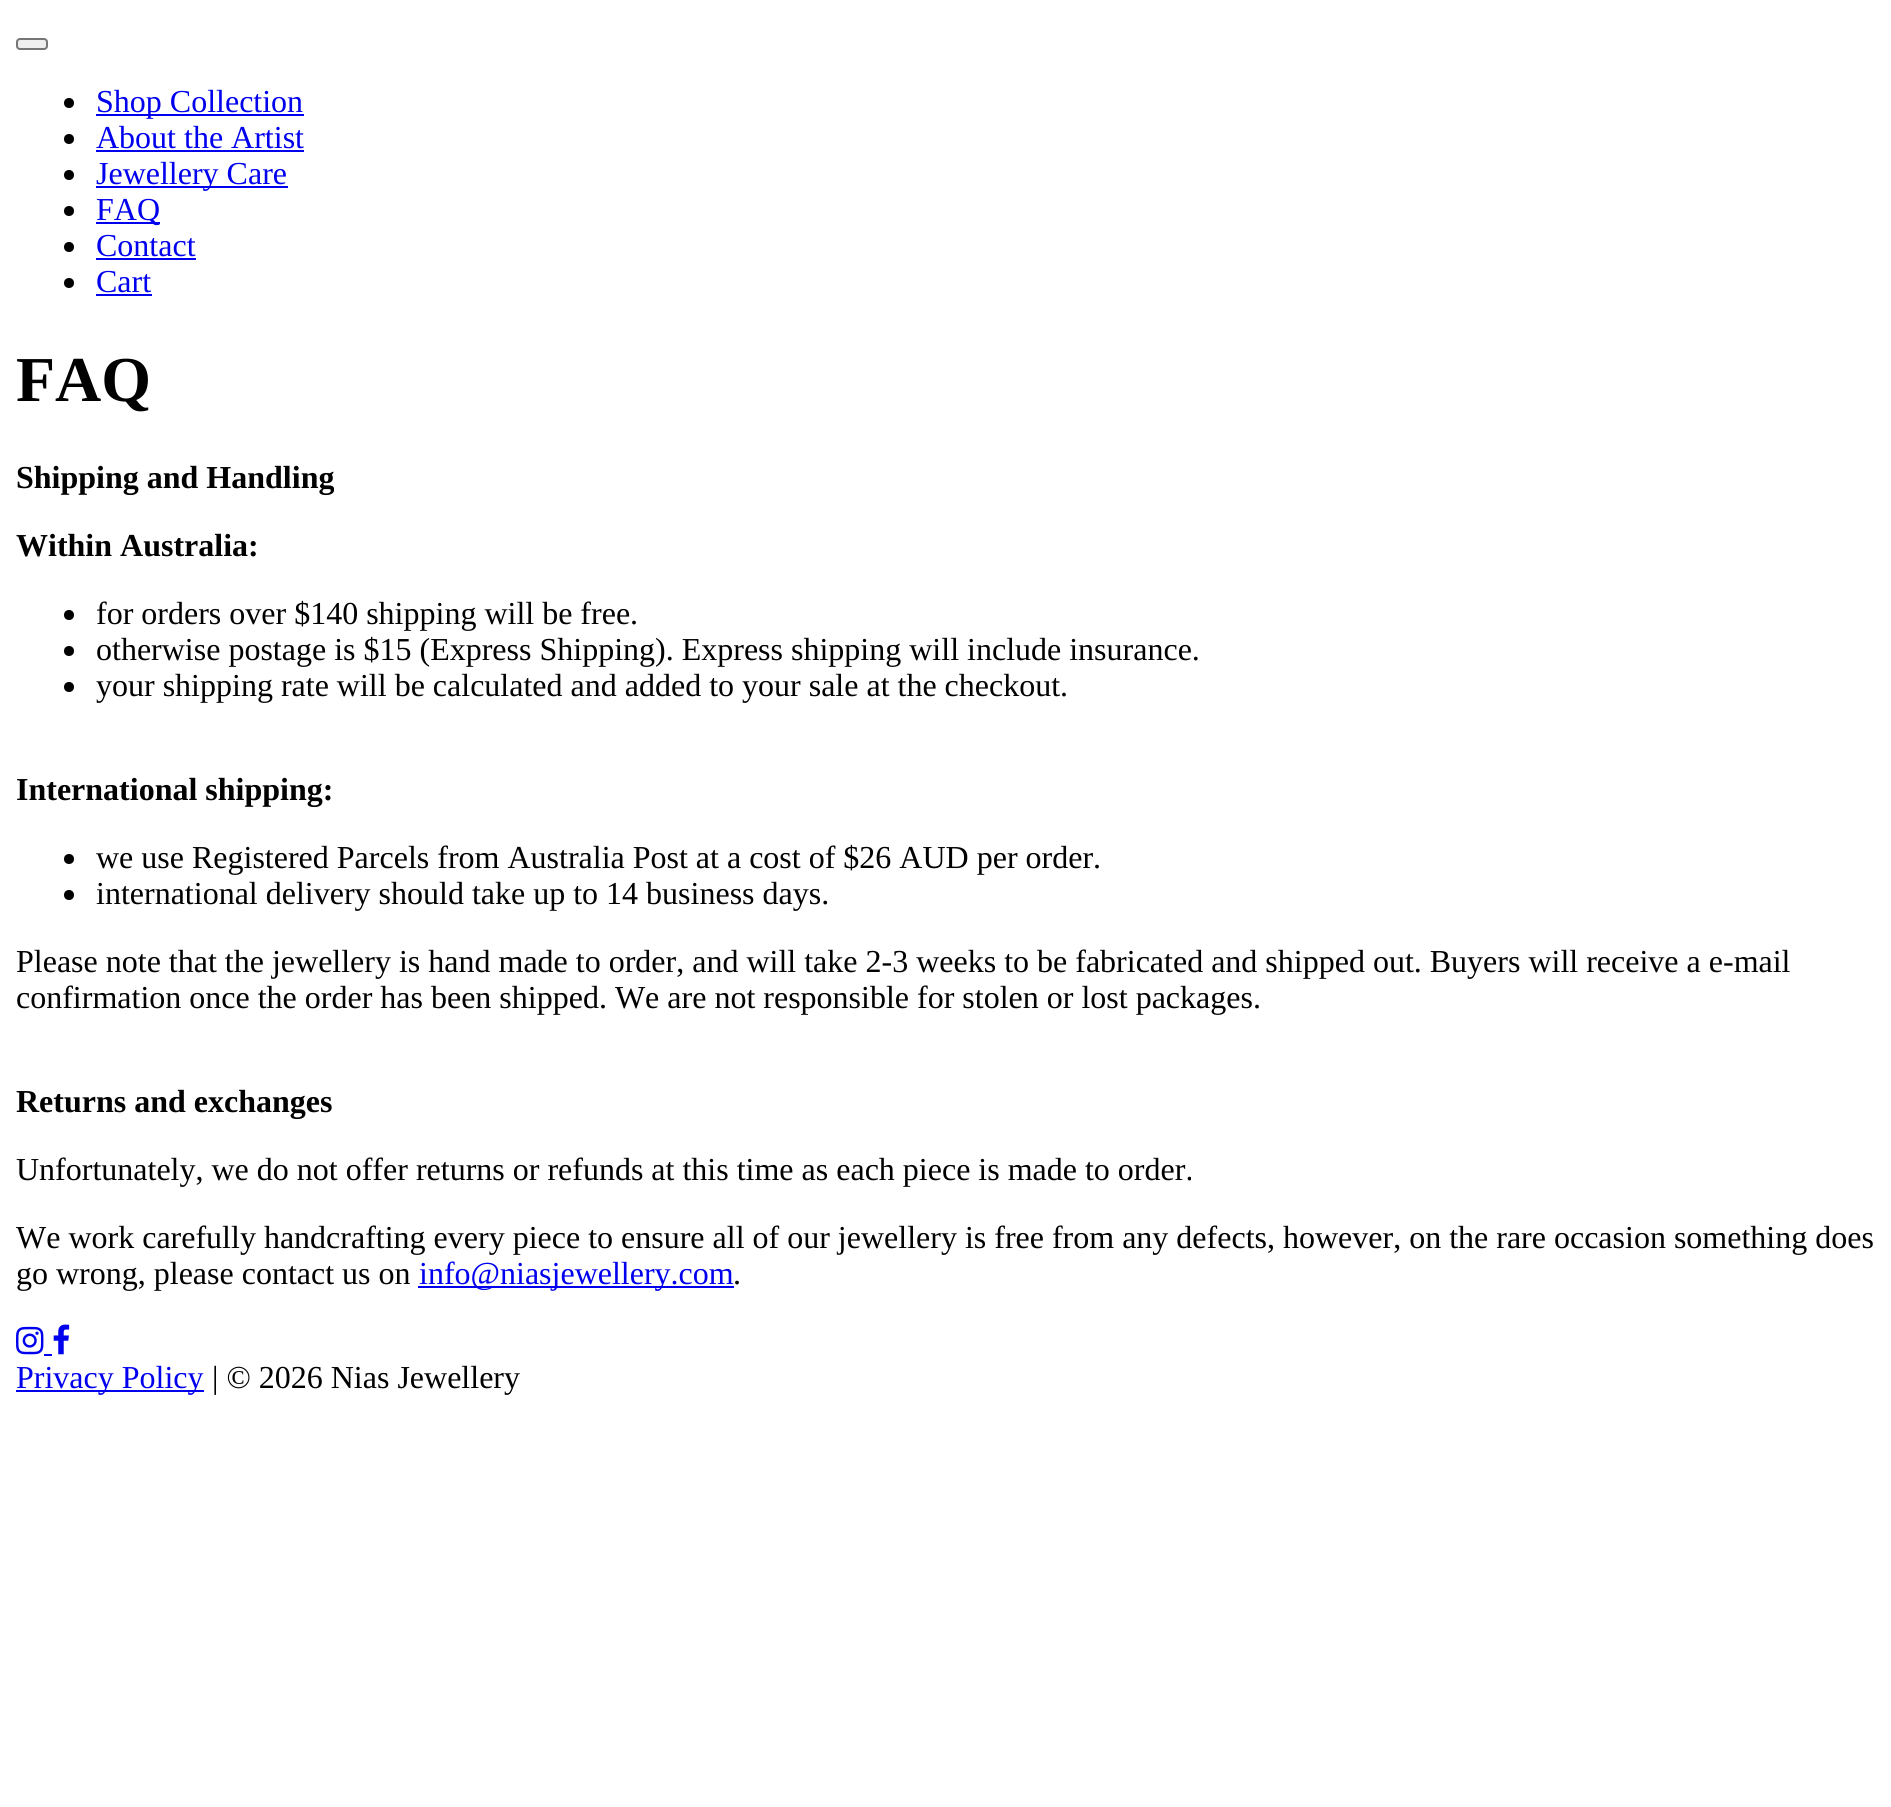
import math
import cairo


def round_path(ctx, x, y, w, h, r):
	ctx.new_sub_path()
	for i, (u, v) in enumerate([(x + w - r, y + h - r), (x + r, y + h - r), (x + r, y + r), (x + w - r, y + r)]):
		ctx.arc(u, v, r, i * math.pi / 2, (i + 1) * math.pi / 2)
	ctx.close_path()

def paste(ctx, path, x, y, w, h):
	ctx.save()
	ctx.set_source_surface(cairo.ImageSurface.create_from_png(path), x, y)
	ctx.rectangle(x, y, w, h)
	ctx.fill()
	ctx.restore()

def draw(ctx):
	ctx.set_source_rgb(1, 1, 1)
	ctx.paint()
	ctx.set_source_rgb(0.937, 0.937, 0.937)
	round_path(ctx, 17, 39, 30, 10, 3)
	ctx.fill_preserve()
	ctx.set_source_rgb(0.463, 0.463, 0.463)
	ctx.stroke()
	ctx.set_source_rgb(0, 0, 0)
	ctx.arc(69, 103, 5, 0, 2 * math.pi)
	ctx.fill()
	ctx.set_source_rgb(0, 0, 0.933)
	ctx.rectangle(96, 114, 208, 2)
	ctx.fill()
	ctx.select_font_face('Liberation Serif')
	ctx.set_font_size(32)
	ctx.move_to(96, 112)
	ctx.show_text('Shop Collection')
	ctx.set_source_rgb(0, 0, 0)
	ctx.new_path()
	ctx.arc(69, 139, 5, 0, 2 * math.pi)
	ctx.fill()
	ctx.set_source_rgb(0, 0, 0.933)
	ctx.move_to(96, 148)
	ctx.show_text('About the Artist')
	ctx.rectangle(96, 150, 208, 2)
	ctx.fill()
	ctx.set_source_rgb(0, 0, 0)
	ctx.arc(69, 175, 5, 0, 2 * math.pi)
	ctx.fill()
	ctx.set_source_rgb(0, 0, 0.933)
	ctx.rectangle(96, 186, 192, 2)
	ctx.fill()
	ctx.move_to(96, 184)
	ctx.show_text('Jewellery Care')
	ctx.set_source_rgb(0, 0, 0)
	ctx.new_path()
	ctx.arc(69, 211, 5, 0, 2 * math.pi)
	ctx.fill()
	ctx.set_source_rgb(0, 0, 0.933)
	ctx.rectangle(96, 222, 64, 2)
	ctx.fill()
	ctx.move_to(96, 220)
	ctx.show_text('FAQ')
	ctx.set_source_rgb(0, 0, 0)
	ctx.new_path()
	ctx.arc(69, 247, 5, 0, 2 * math.pi)
	ctx.fill()
	ctx.set_source_rgb(0, 0, 0.933)
	ctx.move_to(96, 256)
	ctx.show_text('Contact')
	ctx.rectangle(96, 258, 100, 2)
	ctx.fill()
	ctx.set_source_rgb(0, 0, 0)
	ctx.arc(69, 283, 5, 0, 2 * math.pi)
	ctx.fill()
	ctx.set_source_rgb(0, 0, 0.933)
	ctx.move_to(96, 292)
	ctx.show_text('Cart')
	ctx.rectangle(96, 294, 56, 2)
	ctx.fill()
	ctx.select_font_face('Liberation Serif', cairo.FONT_SLANT_NORMAL, cairo.FONT_WEIGHT_BOLD)
	ctx.set_font_size(64)
	ctx.set_source_rgb(0, 0, 0)
	ctx.move_to(16, 401)
	ctx.show_text('FAQ')
	ctx.set_font_size(32)
	ctx.move_to(16, 488)
	ctx.show_text('Shipping and Handling')
	ctx.move_to(16, 556)
	ctx.show_text('Within Australia:')
	ctx.new_path()
	ctx.arc(69, 615, 5, 0, 2 * math.pi)
	ctx.fill()
	ctx.select_font_face('Liberation Serif')
	ctx.move_to(96, 624)
	ctx.show_text('for orders over $140 shipping will be free.')
	ctx.new_path()
	ctx.arc(69, 651, 5, 0, 2 * math.pi)
	ctx.fill()
	ctx.move_to(96, 660)
	ctx.show_text('otherwise postage is $15 (Express Shipping). Express shipping will include insurance.')
	ctx.new_path()
	ctx.arc(69, 687, 5, 0, 2 * math.pi)
	ctx.fill()
	ctx.move_to(96, 696)
	ctx.show_text('your shipping rate will be calculated and added to your sale at the checkout.')
	ctx.select_font_face('Liberation Serif', cairo.FONT_SLANT_NORMAL, cairo.FONT_WEIGHT_BOLD)
	ctx.move_to(16, 800)
	ctx.show_text('International shipping:')
	ctx.new_path()
	ctx.arc(69, 859, 5, 0, 2 * math.pi)
	ctx.fill()
	ctx.select_font_face('Liberation Serif')
	ctx.move_to(96, 868)
	ctx.show_text('we use Registered Parcels from Australia Post at a cost of $26 AUD per order.')
	ctx.new_path()
	ctx.arc(69, 895, 5, 0, 2 * math.pi)
	ctx.fill()
	for x, y, s in [
		(96, 904, 'international delivery should take up to 14 business days.'),
		(16, 972, 'Please note that the jewellery is hand made to order, and will take 2-3 weeks to be fabricated and shipped out. Buyers will receive a e-mail'),
		(16, 1008, 'confirmation once the order has been shipped. We are not responsible for stolen or lost packages.'),
	]:
		ctx.move_to(x, y)
		ctx.show_text(s)
	ctx.select_font_face('Liberation Serif', cairo.FONT_SLANT_NORMAL, cairo.FONT_WEIGHT_BOLD)
	ctx.move_to(16, 1112)
	ctx.show_text('Returns and exchanges')
	ctx.select_font_face('Liberation Serif')
	for x, y, s in [
		(16, 1180, 'Unfortunately, we do not offer returns or refunds at this time as each piece is made to order.'),
		(16, 1248, 'We work carefully handcrafting every piece to ensure all of our jewellery is free from any defects, however, on the rare occasion something does'),
		(16, 1284, 'go wrong, please contact us on'),
	]:
		ctx.move_to(x, y)
		ctx.show_text(s)
	ctx.set_source_rgb(0, 0, 0.933)
	ctx.rectangle(418, 1286, 316, 2)
	ctx.fill()
	ctx.move_to(419, 1284)
	ctx.show_text('info@niasjewellery.com')
	ctx.set_source_rgb(0, 0, 0)
	ctx.move_to(733, 1284)
	ctx.show_text('.')
	paste(ctx, 'media/1.png', 16, 1326, 28, 29)
	ctx.set_source_rgb(0, 0, 0.933)
	ctx.rectangle(44, 1354, 8, 2)
	ctx.fill()
	paste(ctx, 'media/2.png', 53, 1324, 17, 31)
	ctx.rectangle(16, 1390, 188, 2)
	ctx.fill()
	ctx.move_to(16, 1388)
	ctx.show_text('Privacy Policy')
	ctx.set_source_rgb(0, 0, 0)
	ctx.move_to(212, 1388)
	ctx.show_text('| © 2026 Nias Jewellery')


surface = cairo.ImageSurface(cairo.FORMAT_RGB24, 1891, 1807)
ctx = cairo.Context(surface)
options = cairo.FontOptions()
options.set_hint_metrics(cairo.HINT_METRICS_OFF)
options.set_hint_style(cairo.HINT_STYLE_NONE)
ctx.set_font_options(options)
ctx.set_miter_limit(4)
draw(ctx)
surface.write_to_png('image.png')
